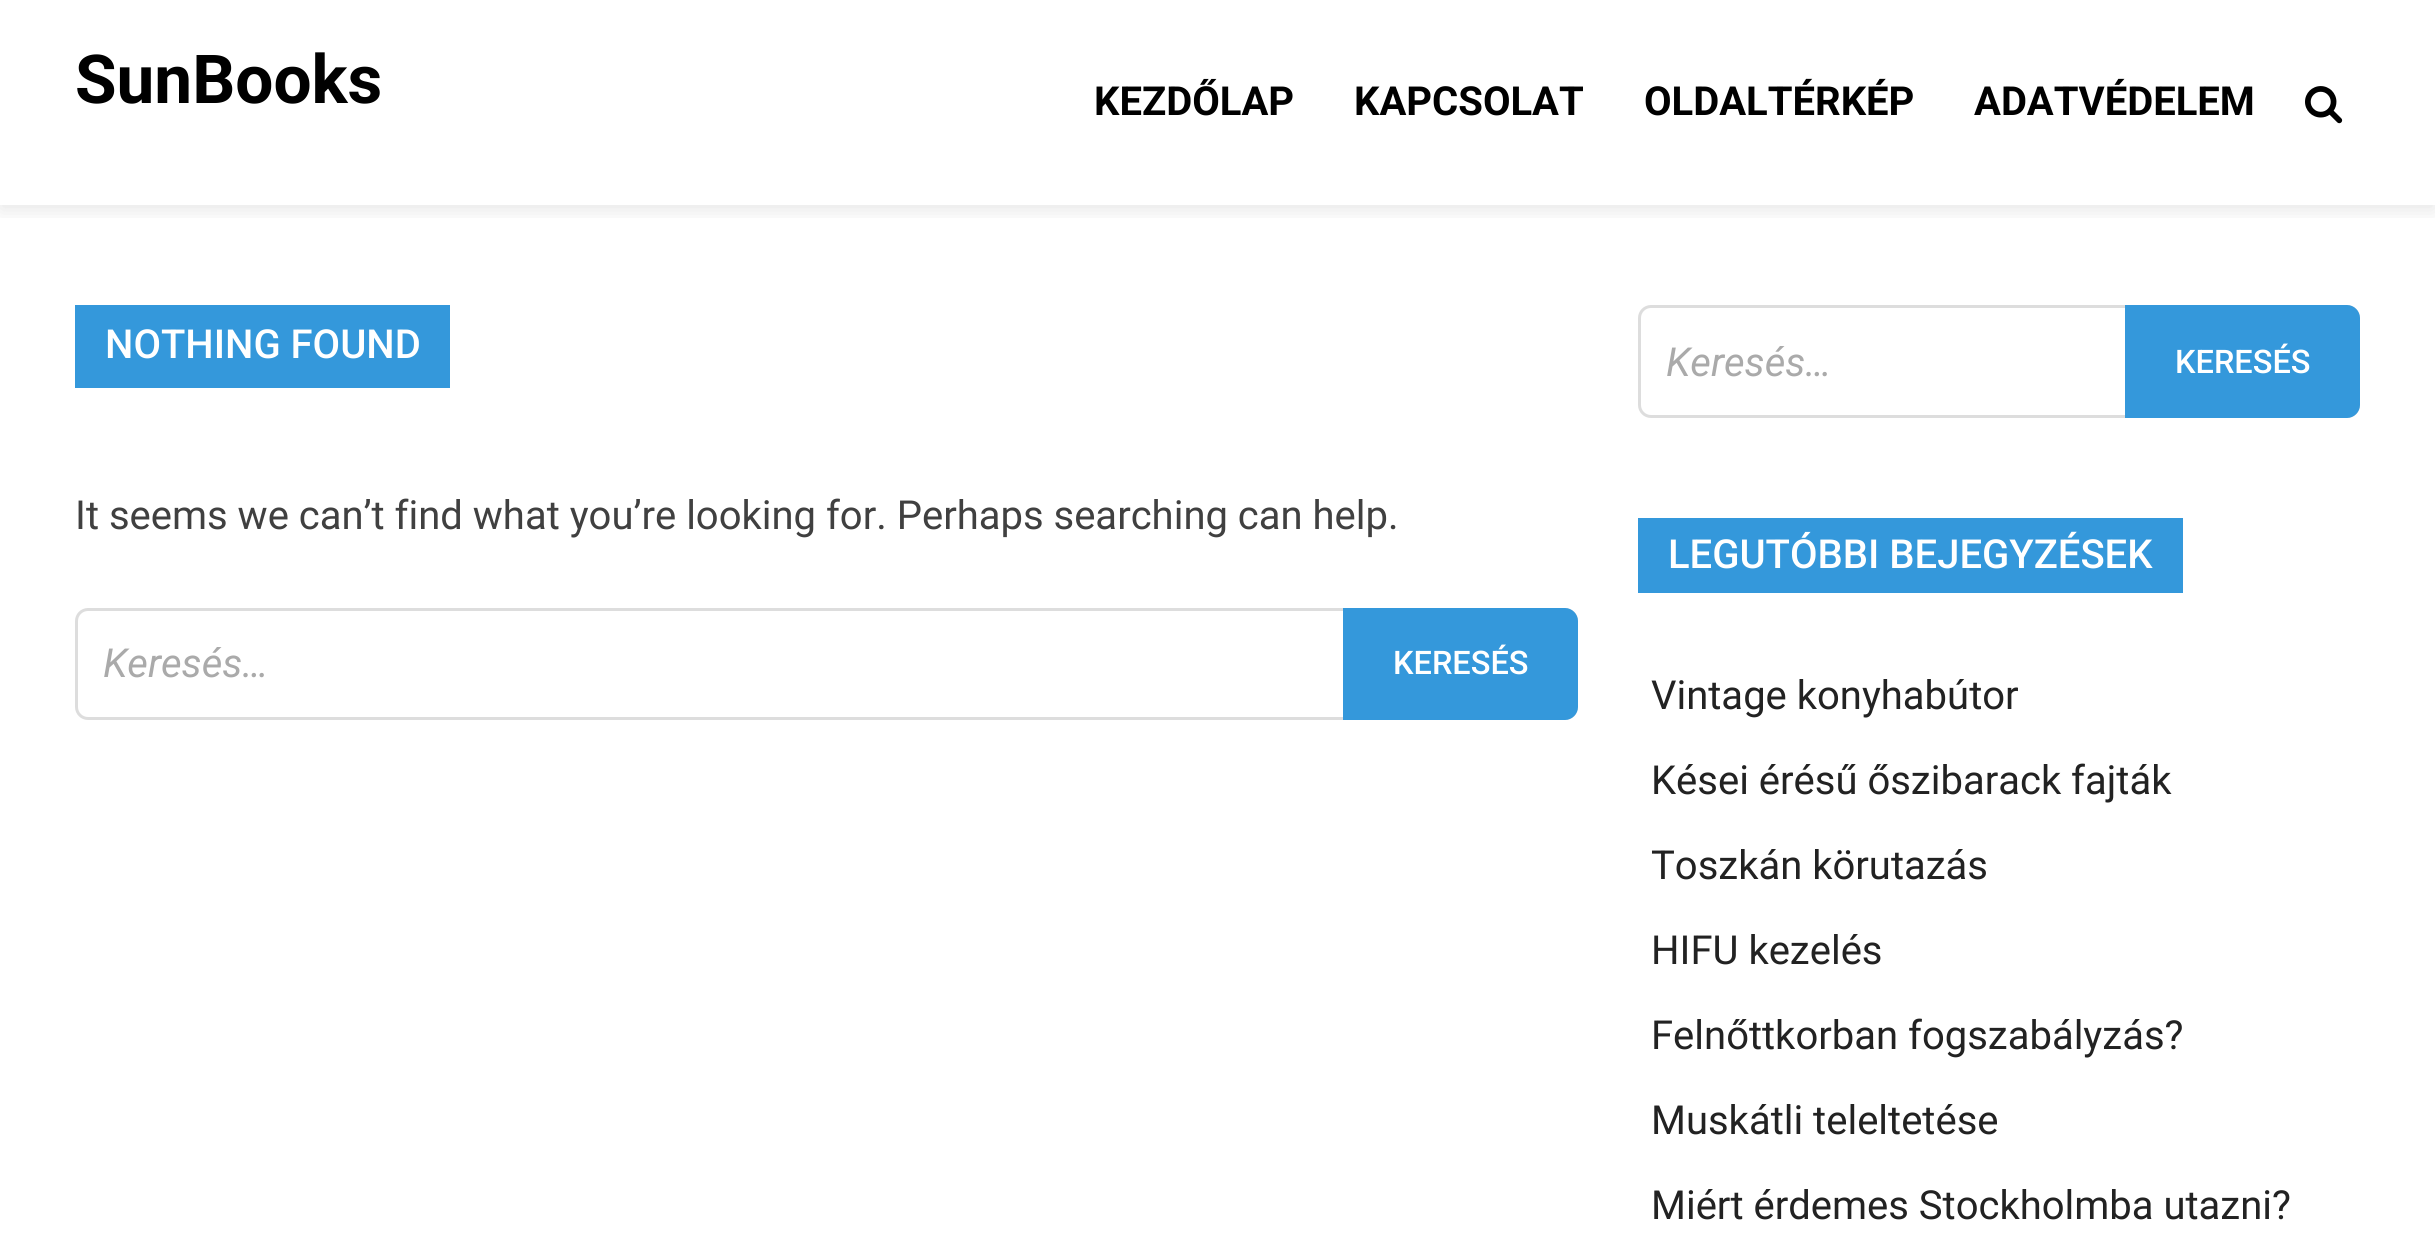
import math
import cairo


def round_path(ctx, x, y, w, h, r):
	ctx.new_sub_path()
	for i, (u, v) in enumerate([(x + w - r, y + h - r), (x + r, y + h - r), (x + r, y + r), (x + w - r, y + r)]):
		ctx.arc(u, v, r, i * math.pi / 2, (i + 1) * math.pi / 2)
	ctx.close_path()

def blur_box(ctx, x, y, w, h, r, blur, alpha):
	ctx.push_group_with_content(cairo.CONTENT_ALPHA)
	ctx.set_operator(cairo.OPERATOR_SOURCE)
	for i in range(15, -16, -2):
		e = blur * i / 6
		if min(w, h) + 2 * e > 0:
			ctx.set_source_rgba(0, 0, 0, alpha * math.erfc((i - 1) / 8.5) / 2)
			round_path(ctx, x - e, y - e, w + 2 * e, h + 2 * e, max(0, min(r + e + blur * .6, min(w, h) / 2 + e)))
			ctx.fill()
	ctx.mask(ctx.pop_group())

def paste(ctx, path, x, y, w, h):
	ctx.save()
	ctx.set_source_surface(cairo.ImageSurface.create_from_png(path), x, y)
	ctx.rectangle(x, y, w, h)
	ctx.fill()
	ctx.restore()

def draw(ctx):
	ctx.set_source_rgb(1, 1, 1)
	ctx.paint()
	ctx.save()
	ctx.rectangle(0, 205, 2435, 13)
	ctx.clip()
	ctx.set_source_rgb(0, 0, 0)
	blur_box(ctx, 0, 5, 2435, 205, 0, 10, 0.1)
	ctx.restore()
	ctx.select_font_face('Roboto', cairo.FONT_SLANT_NORMAL, cairo.FONT_WEIGHT_BOLD)
	ctx.set_font_size(67.5)
	ctx.set_source_rgb(0, 0, 0)
	ctx.move_to(75, 103)
	ctx.show_text('SunBooks')
	ctx.set_font_size(40)
	for x, y, s in [
		(1094, 115, 'KEZDŐLAP'),
		(1354, 115, 'KAPCSOLAT'),
		(1644, 115, 'OLDALTÉRKÉP'),
		(1974, 115, 'ADATVÉDELEM'),
	]:
		ctx.move_to(x, y)
		ctx.show_text(s)
	paste(ctx, 'media/1.png', 2305, 86, 38, 38)
	ctx.set_source_rgb(0.204, 0.596, 0.859)
	ctx.rectangle(75, 305, 375, 83)
	ctx.fill()
	ctx.select_font_face('Roboto Medium')
	ctx.set_source_rgb(1, 1, 1)
	ctx.move_to(105, 358)
	ctx.show_text('NOTHING FOUND')
	ctx.select_font_face('Roboto')
	ctx.set_source_rgb(0.251, 0.251, 0.251)
	ctx.move_to(75, 529)
	ctx.show_text('It seems we can’t find what you’re looking for. Perhaps searching can help.')
	round_path(ctx, 76.5, 609.5, 1500, 109, 11.5)
	ctx.set_source_rgb(0.867, 0.867, 0.867)
	ctx.set_line_width(3)
	ctx.stroke()
	ctx.select_font_face('Roboto', cairo.FONT_SLANT_ITALIC)
	ctx.set_source_rgb(0.667, 0.667, 0.667)
	ctx.move_to(103, 677)
	ctx.show_text('Keresés…')
	ctx.set_source_rgb(0.204, 0.596, 0.859)
	ctx.new_path()
	ctx.move_to(1343, 608)
	ctx.line_to(1565, 608)
	ctx.curve_to(1572, 608, 1578, 614, 1578, 621)
	ctx.line_to(1578, 707)
	ctx.curve_to(1578, 714, 1572, 720, 1565, 720)
	ctx.line_to(1343, 720)
	ctx.close_path()
	ctx.fill()
	ctx.select_font_face('Roboto Medium')
	ctx.set_font_size(32.5)
	ctx.set_source_rgb(1, 1, 1)
	ctx.move_to(1393, 674)
	ctx.show_text('KERESÉS')
	round_path(ctx, 1639.5, 306.5, 719, 110, 11.5)
	ctx.set_source_rgb(0.867, 0.867, 0.867)
	ctx.stroke()
	ctx.select_font_face('Roboto', cairo.FONT_SLANT_ITALIC)
	ctx.set_font_size(40)
	ctx.set_source_rgb(0.667, 0.667, 0.667)
	ctx.move_to(1666, 376)
	ctx.show_text('Keresés…')
	ctx.set_source_rgb(0.204, 0.596, 0.859)
	ctx.new_path()
	ctx.move_to(2125, 305)
	ctx.line_to(2347, 305)
	ctx.curve_to(2354, 305, 2360, 311, 2360, 318)
	ctx.line_to(2360, 405)
	ctx.curve_to(2360, 412, 2354, 418, 2347, 418)
	ctx.line_to(2125, 418)
	ctx.close_path()
	ctx.fill()
	ctx.select_font_face('Roboto Medium')
	ctx.set_font_size(32.5)
	ctx.set_source_rgb(1, 1, 1)
	ctx.move_to(2175, 373)
	ctx.show_text('KERESÉS')
	ctx.set_source_rgb(0.204, 0.596, 0.859)
	ctx.rectangle(1638, 518, 545, 75)
	ctx.fill()
	ctx.set_font_size(40)
	ctx.set_source_rgb(1, 1, 1)
	ctx.move_to(1668, 568)
	ctx.show_text('LEGUTÓBBI BEJEGYZÉSEK')
	ctx.select_font_face('Roboto')
	ctx.set_source_rgb(0.133, 0.133, 0.133)
	for x, y, s in [
		(1651, 709, 'Vintage konyhabútor'),
		(1651, 794, 'Kései érésű őszibarack fajták'),
		(1651, 879, 'Toszkán körutazás'),
		(1651, 964, 'HIFU kezelés'),
		(1651, 1049, 'Felnőttkorban fogszabályzás?'),
		(1651, 1134, 'Muskátli teleltetése'),
		(1651, 1219, 'Miért érdemes Stockholmba utazni?'),
	]:
		ctx.move_to(x, y)
		ctx.show_text(s)


surface = cairo.ImageSurface(cairo.FORMAT_RGB24, 2435, 1234)
ctx = cairo.Context(surface)
options = cairo.FontOptions()
options.set_hint_metrics(cairo.HINT_METRICS_OFF)
options.set_hint_style(cairo.HINT_STYLE_NONE)
ctx.set_font_options(options)
ctx.set_miter_limit(4)
draw(ctx)
surface.write_to_png('image.png')
